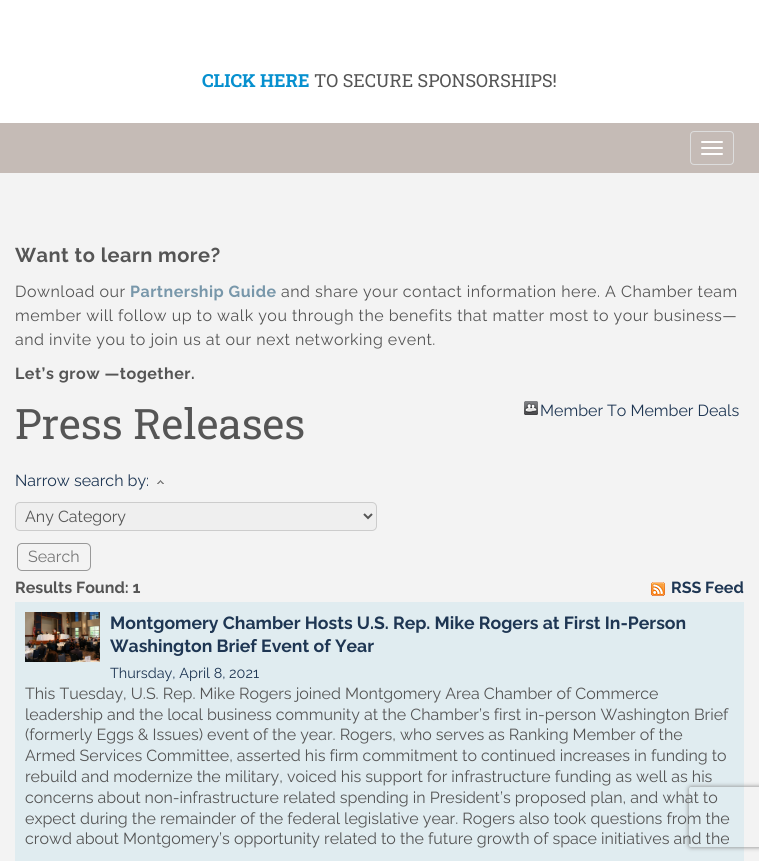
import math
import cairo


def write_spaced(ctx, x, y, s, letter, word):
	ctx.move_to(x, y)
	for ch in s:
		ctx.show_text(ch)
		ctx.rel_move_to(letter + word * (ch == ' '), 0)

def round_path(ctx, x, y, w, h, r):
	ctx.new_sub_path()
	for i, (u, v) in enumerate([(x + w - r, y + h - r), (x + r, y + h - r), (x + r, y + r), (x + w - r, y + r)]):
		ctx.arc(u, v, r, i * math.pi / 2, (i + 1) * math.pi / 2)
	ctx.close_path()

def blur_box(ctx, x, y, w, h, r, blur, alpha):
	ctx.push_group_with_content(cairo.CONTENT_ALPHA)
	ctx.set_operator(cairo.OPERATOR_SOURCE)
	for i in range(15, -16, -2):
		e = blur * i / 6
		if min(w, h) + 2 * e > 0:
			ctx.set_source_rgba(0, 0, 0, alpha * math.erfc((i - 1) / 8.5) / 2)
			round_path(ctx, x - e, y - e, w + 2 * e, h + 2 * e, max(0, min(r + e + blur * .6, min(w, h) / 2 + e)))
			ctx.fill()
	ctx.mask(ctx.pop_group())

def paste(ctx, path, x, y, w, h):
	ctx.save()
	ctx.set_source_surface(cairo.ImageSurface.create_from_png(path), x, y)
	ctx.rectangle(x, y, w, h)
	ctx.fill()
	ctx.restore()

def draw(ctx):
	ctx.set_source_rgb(0.953, 0.953, 0.953)
	ctx.paint()
	ctx.set_source_rgb(1, 1, 1)
	ctx.rectangle(0, 0, 759, 123)
	ctx.fill()
	ctx.select_font_face('Roboto Slab', cairo.FONT_SLANT_NORMAL, cairo.FONT_WEIGHT_BOLD)
	ctx.set_font_size(18)
	ctx.set_source_rgb(0.024, 0.565, 0.812)
	ctx.move_to(202, 87)
	ctx.show_text('CLICK HERE')
	ctx.select_font_face('Roboto Slab')
	ctx.set_source_rgb(0.333, 0.333, 0.333)
	ctx.move_to(314, 87)
	ctx.show_text('TO SECURE SPONSORSHIPS!')
	ctx.set_source_rgb(0.773, 0.733, 0.714)
	ctx.rectangle(0, 123, 759, 50)
	ctx.fill()
	round_path(ctx, 690.5, 131.5, 43, 33, 3.5)
	ctx.set_source_rgb(0.867, 0.867, 0.867)
	ctx.set_line_width(1)
	ctx.stroke()
	ctx.set_source_rgb(1, 1, 1)
	round_path(ctx, 701, 141, 22, 2, 1)
	ctx.fill()
	round_path(ctx, 701, 147, 22, 2, 1)
	ctx.fill()
	round_path(ctx, 701, 153, 22, 2, 1)
	ctx.fill()
	ctx.select_font_face('Raleway', cairo.FONT_SLANT_NORMAL, cairo.FONT_WEIGHT_BOLD)
	ctx.set_font_size(20)
	ctx.set_source_rgb(0.333, 0.333, 0.333)
	write_spaced(ctx, 15, 262, 'Want to learn more?', 0.5, 0)
	ctx.select_font_face('Raleway')
	ctx.set_font_size(16)
	write_spaced(ctx, 15, 297, 'Download our', 0.5, 0)
	ctx.select_font_face('Raleway', cairo.FONT_SLANT_NORMAL, cairo.FONT_WEIGHT_BOLD)
	ctx.set_source_rgb(0.471, 0.592, 0.667)
	write_spaced(ctx, 130, 297, 'Partnership Guide', 0.5, 0)
	ctx.select_font_face('Raleway')
	ctx.set_source_rgb(0.333, 0.333, 0.333)
	for x, y, s in [
		(281, 297, 'and share your contact information here. A Chamber team'),
		(15, 321, 'member will follow up to walk you through the benefits that matter most to your business—'),
		(15, 345, 'and invite you to join us at our next networking event.'),
	]:
		write_spaced(ctx, x, y, s, 0.5, 0)
	ctx.select_font_face('Raleway', cairo.FONT_SLANT_NORMAL, cairo.FONT_WEIGHT_BOLD)
	write_spaced(ctx, 15, 379, 'Let’s grow —together.', 0.5, 0)
	ctx.select_font_face('Roboto Slab')
	ctx.set_font_size(42)
	ctx.move_to(15, 439)
	ctx.show_text('Press Releases')
	paste(ctx, 'media/1.png', 524, 401, 14, 14)
	ctx.select_font_face('Raleway')
	ctx.set_font_size(16)
	ctx.set_source_rgb(0.118, 0.212, 0.325)
	ctx.move_to(540, 416)
	ctx.show_text('Member To Member Deals')
	ctx.move_to(15, 486)
	ctx.show_text('Narrow search by:')
	paste(ctx, 'media/2.png', 157, 480, 7, 4)
	ctx.set_source_rgb(0.937, 0.937, 0.937)
	round_path(ctx, 15.5, 502.5, 361, 28, 4.5)
	ctx.fill_preserve()
	ctx.set_source_rgb(0.8, 0.8, 0.8)
	ctx.stroke()
	ctx.new_path()
	ctx.move_to(364, 514)
	ctx.line_to(368, 518)
	ctx.line_to(372, 514)
	ctx.set_source_rgb(0.333, 0.333, 0.333)
	ctx.set_line_width(2)
	ctx.stroke()
	ctx.move_to(25, 522)
	ctx.show_text('Any Category')
	round_path(ctx, 17.5, 543.5, 73, 27, 4.5)
	ctx.set_source_rgb(0.6, 0.6, 0.6)
	ctx.set_line_width(1)
	ctx.stroke()
	ctx.set_source_rgb(0.467, 0.467, 0.467)
	ctx.move_to(28, 562)
	ctx.show_text('Search')
	ctx.select_font_face('Raleway', cairo.FONT_SLANT_NORMAL, cairo.FONT_WEIGHT_BOLD)
	ctx.set_source_rgb(0.333, 0.333, 0.333)
	ctx.move_to(15, 593)
	ctx.show_text('Results Found: 1')
	paste(ctx, 'media/3.png', 651, 582, 14, 14)
	ctx.set_source_rgb(0.118, 0.212, 0.325)
	ctx.move_to(671, 593)
	ctx.show_text('RSS Feed')
	ctx.set_source_rgb(0.878, 0.922, 0.941)
	ctx.rectangle(15, 602, 729, 259)
	ctx.fill()
	paste(ctx, 'media/4.png', 25, 612, 75, 50)
	ctx.set_font_size(17.6)
	ctx.set_source_rgb(0.118, 0.212, 0.325)
	ctx.move_to(110, 629)
	ctx.show_text('Montgomery Chamber Hosts U.S. Rep. Mike Rogers at First In-Person')
	ctx.move_to(110, 652)
	ctx.show_text('Washington Brief Event of Year')
	ctx.select_font_face('Raleway')
	ctx.set_font_size(14.4)
	ctx.move_to(110, 678)
	ctx.show_text('Thursday, April 8, 2021')
	ctx.set_font_size(16)
	ctx.set_source_rgb(0.333, 0.333, 0.333)
	for x, y, s in [
		(25, 699, 'This Tuesday, U.S. Rep. Mike Rogers joined Montgomery Area Chamber of Commerce'),
		(25, 720, 'leadership and the local business community at the Chamber’s first in-person Washington Brief'),
		(25, 740, '(formerly Eggs & Issues) event of the year. Rogers, who serves as Ranking Member of the'),
		(25, 761, 'Armed Services Committee, asserted his firm commitment to continued increases in funding to'),
		(25, 782, 'rebuild and modernize the military, voiced his support for infrastructure funding as well as his'),
		(25, 803, 'concerns about non-infrastructure related spending in President’s proposed plan, and what to'),
		(25, 824, 'expect during the remainder of the federal legislative year. Rogers also took questions from the'),
		(25, 844, 'crowd about Montgomery’s opportunity related to the future growth of space initiatives and the'),
	]:
		ctx.move_to(x, y)
		ctx.show_text(s)
	ctx.save()
	ctx.set_fill_rule(cairo.FILL_RULE_EVEN_ODD)
	ctx.new_path()
	ctx.move_to(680, 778)
	ctx.line_to(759, 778)
	ctx.line_to(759, 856)
	ctx.line_to(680, 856)
	ctx.close_path()
	ctx.move_to(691, 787)
	ctx.line_to(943, 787)
	ctx.curve_to(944, 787, 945, 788, 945, 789)
	ctx.line_to(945, 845)
	ctx.curve_to(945, 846, 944, 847, 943, 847)
	ctx.line_to(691, 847)
	ctx.curve_to(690, 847, 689, 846, 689, 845)
	ctx.line_to(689, 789)
	ctx.curve_to(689, 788, 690, 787, 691, 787)
	ctx.close_path()
	ctx.clip()
	ctx.set_source_rgb(0.502, 0.502, 0.502)
	blur_box(ctx, 689, 787, 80, 60, 2, 2.5, 1)
	ctx.restore()


surface = cairo.ImageSurface(cairo.FORMAT_RGB24, 759, 861)
ctx = cairo.Context(surface)
options = cairo.FontOptions()
options.set_hint_metrics(cairo.HINT_METRICS_OFF)
options.set_hint_style(cairo.HINT_STYLE_NONE)
ctx.set_font_options(options)
ctx.set_miter_limit(4)
draw(ctx)
surface.write_to_png('image.png')
